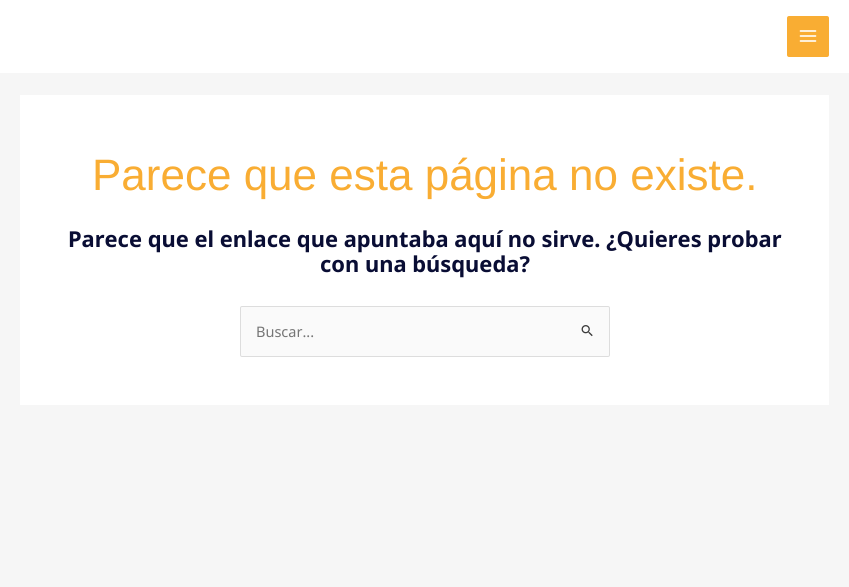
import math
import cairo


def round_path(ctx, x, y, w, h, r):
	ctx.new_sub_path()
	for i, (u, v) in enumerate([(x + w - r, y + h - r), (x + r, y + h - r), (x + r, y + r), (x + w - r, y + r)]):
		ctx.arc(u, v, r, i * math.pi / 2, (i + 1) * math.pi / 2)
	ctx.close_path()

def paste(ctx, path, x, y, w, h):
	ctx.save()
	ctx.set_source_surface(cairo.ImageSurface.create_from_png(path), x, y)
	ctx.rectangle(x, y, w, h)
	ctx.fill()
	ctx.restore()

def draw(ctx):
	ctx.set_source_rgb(0.961, 0.961, 0.961)
	ctx.paint()
	ctx.set_source_rgb(1, 1, 1)
	ctx.rectangle(0, 0, 849, 73)
	ctx.fill()
	ctx.set_source_rgb(0.976, 0.678, 0.2)
	round_path(ctx, 787, 16, 42, 41, 2)
	ctx.fill()
	paste(ctx, 'media/1.png', 799, 30, 18, 12)
	ctx.set_source_rgb(1, 1, 1)
	ctx.rectangle(20, 95, 809, 310)
	ctx.fill()
	ctx.select_font_face('Liberation Sans')
	ctx.set_font_size(44)
	ctx.set_source_rgb(0.976, 0.678, 0.2)
	ctx.move_to(92, 190)
	ctx.show_text('Parece que esta página no existe.')
	ctx.select_font_face('Noto Sans', cairo.FONT_SLANT_NORMAL, cairo.FONT_WEIGHT_BOLD)
	ctx.set_font_size(21.9)
	ctx.set_source_rgb(0.039, 0.051, 0.204)
	ctx.move_to(68, 247)
	ctx.show_text('Parece que el enlace que apuntaba aquí no sirve. ¿Quieres probar')
	ctx.move_to(320, 272)
	ctx.show_text('con una búsqueda?')
	ctx.set_source_rgb(0.98, 0.98, 0.98)
	round_path(ctx, 240.5, 306.5, 369, 50, 1.5)
	ctx.fill_preserve()
	ctx.set_source_rgb(0.867, 0.867, 0.867)
	ctx.set_line_width(1)
	ctx.stroke()
	ctx.select_font_face('Noto Sans')
	ctx.set_font_size(14.5)
	ctx.set_source_rgb(0.459, 0.459, 0.459)
	ctx.move_to(256, 337)
	ctx.show_text('Buscar...')
	paste(ctx, 'media/2.png', 581, 325, 12, 12)


surface = cairo.ImageSurface(cairo.FORMAT_RGB24, 849, 587)
ctx = cairo.Context(surface)
options = cairo.FontOptions()
options.set_hint_metrics(cairo.HINT_METRICS_OFF)
options.set_hint_style(cairo.HINT_STYLE_NONE)
ctx.set_font_options(options)
ctx.set_miter_limit(4)
draw(ctx)
surface.write_to_png('image.png')
